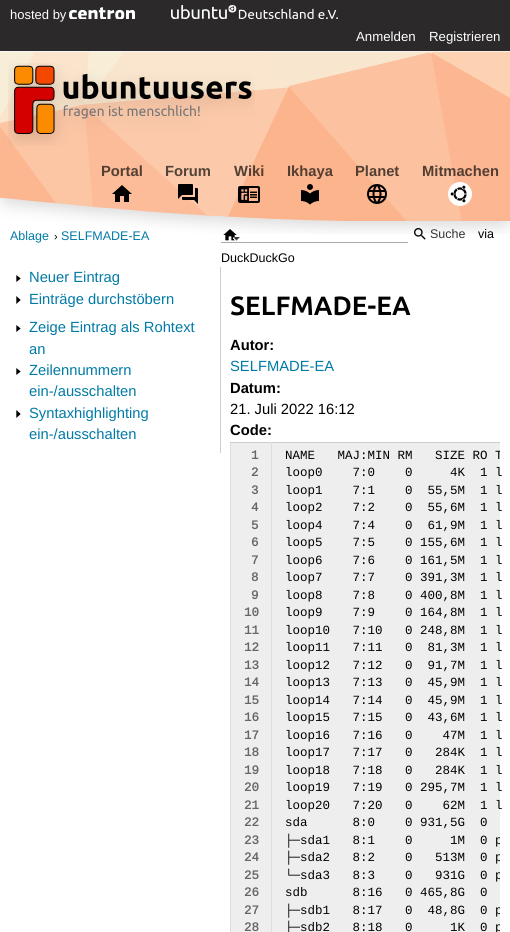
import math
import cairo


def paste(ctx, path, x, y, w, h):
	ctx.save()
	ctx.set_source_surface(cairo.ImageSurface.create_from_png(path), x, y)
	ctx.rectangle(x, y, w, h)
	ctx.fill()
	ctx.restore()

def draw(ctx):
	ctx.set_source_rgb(1, 1, 1)
	ctx.paint()
	ctx.set_source_rgb(0.169, 0.161, 0.161)
	ctx.rectangle(0, 0, 510, 51)
	ctx.fill()
	ctx.select_font_face('Liberation Sans')
	ctx.set_font_size(13)
	ctx.set_source_rgb(1, 1, 1)
	ctx.move_to(10, 19)
	ctx.show_text('hosted by')
	paste(ctx, 'media/1.png', 69, 7, 66, 12)
	paste(ctx, 'media/2.png', 171, 5, 167, 14)
	ctx.set_font_size(13.25)
	ctx.move_to(356, 41)
	ctx.show_text('Anmelden')
	ctx.move_to(429, 41)
	ctx.show_text('Registrieren')
	ctx.set_font_size(12.5)
	ctx.set_source_rgb(0, 0.478, 0.651)
	ctx.move_to(10, 240)
	ctx.show_text('Ablage')
	ctx.move_to(61, 240)
	ctx.show_text('SELFMADE-EA')
	paste(ctx, 'media/11.png', 223, 229, 14, 12)
	ctx.set_source_rgb(0, 0, 0)
	ctx.move_to(478, 238)
	ctx.show_text('via')
	paste(ctx, 'media/3.png', 0, 51, 510, 183)
	paste(ctx, 'media/4.png', 8, 63, 247, 83)
	ctx.select_font_face('Liberation Sans', cairo.FONT_SLANT_NORMAL, cairo.FONT_WEIGHT_BOLD)
	ctx.set_font_size(14.75)
	ctx.set_source_rgb(0.325, 0.243, 0.196)
	ctx.move_to(101, 176)
	ctx.show_text('Portal')
	paste(ctx, 'media/5.png', 112, 185, 20, 17)
	ctx.set_source_rgb(0.325, 0.263, 0.22)
	ctx.move_to(165, 176)
	ctx.show_text('Forum')
	paste(ctx, 'media/6.png', 178, 184, 20, 20)
	ctx.set_source_rgb(0.325, 0.243, 0.196)
	ctx.move_to(234, 176)
	ctx.show_text('Wiki')
	paste(ctx, 'media/7.png', 238, 186, 22, 17)
	ctx.move_to(287, 176)
	ctx.show_text('Ikhaya')
	paste(ctx, 'media/8.png', 301, 184, 18, 21)
	ctx.move_to(355, 176)
	ctx.show_text('Planet')
	paste(ctx, 'media/9.png', 367, 184, 20, 20)
	ctx.move_to(422, 176)
	ctx.show_text('Mitmachen')
	paste(ctx, 'media/10.png', 448, 182, 24, 24)
	ctx.select_font_face('Liberation Sans')
	ctx.set_font_size(11)
	ctx.set_source_rgb(0, 0, 0)
	ctx.move_to(54, 240)
	ctx.show_text('›')
	ctx.set_source_rgb(0.667, 0.667, 0.667)
	ctx.rectangle(221, 242, 187, 1)
	ctx.fill()
	paste(ctx, 'media/12.png', 414, 228, 12, 12)
	ctx.set_font_size(12.5)
	ctx.set_source_rgb(0.2, 0.2, 0.2)
	ctx.move_to(430, 238)
	ctx.show_text('Suche')
	paste(ctx, 'media/13.png', 233, 237, 7, 4)
	ctx.set_source_rgb(0, 0, 0)
	ctx.move_to(221, 262)
	ctx.show_text('DuckDuckGo')
	ctx.set_source_rgb(0.8, 0.8, 0.8)
	ctx.rectangle(220, 267, 1, 186)
	ctx.fill()
	paste(ctx, 'media/14.png', 16, 275, 5, 7)
	ctx.set_font_size(14.75)
	ctx.set_source_rgb(0, 0.478, 0.651)
	ctx.move_to(29, 282)
	ctx.show_text('Neuer Eintrag')
	paste(ctx, 'media/15.png', 16, 296, 5, 8)
	ctx.move_to(29, 304)
	ctx.show_text('Einträge durchstöbern')
	paste(ctx, 'media/14.png', 16, 325, 5, 7)
	ctx.move_to(29, 332)
	ctx.show_text('Zeige Eintrag als Rohtext')
	ctx.move_to(29, 354)
	ctx.show_text('an')
	paste(ctx, 'media/14.png', 16, 368, 5, 7)
	ctx.move_to(29, 375)
	ctx.show_text('Zeilennummern')
	ctx.move_to(29, 396)
	ctx.show_text('ein-/ausschalten')
	paste(ctx, 'media/15.png', 16, 410, 5, 8)
	ctx.move_to(29, 418)
	ctx.show_text('Syntaxhighlighting')
	ctx.move_to(29, 439)
	ctx.show_text('ein-/ausschalten')
	ctx.select_font_face('Ubuntu', cairo.FONT_SLANT_NORMAL, cairo.FONT_WEIGHT_BOLD)
	ctx.set_font_size(26.5)
	ctx.set_source_rgb(0, 0, 0)
	ctx.move_to(230, 315)
	ctx.show_text('SELFMADE-EA')
	ctx.select_font_face('Liberation Sans', cairo.FONT_SLANT_NORMAL, cairo.FONT_WEIGHT_BOLD)
	ctx.set_font_size(14.75)
	ctx.move_to(230, 350)
	ctx.show_text('Autor:')
	ctx.select_font_face('Liberation Sans')
	ctx.set_source_rgb(0, 0.478, 0.651)
	ctx.move_to(230, 371)
	ctx.show_text('SELFMADE-EA')
	ctx.select_font_face('Liberation Sans', cairo.FONT_SLANT_NORMAL, cairo.FONT_WEIGHT_BOLD)
	ctx.set_source_rgb(0, 0, 0)
	ctx.move_to(230, 393)
	ctx.show_text('Datum:')
	ctx.select_font_face('Liberation Sans')
	ctx.move_to(230, 414)
	ctx.show_text('21. Juli 2022 16:12')
	ctx.select_font_face('Liberation Sans', cairo.FONT_SLANT_NORMAL, cairo.FONT_WEIGHT_BOLD)
	ctx.move_to(230, 435)
	ctx.show_text('Code:')
	ctx.set_source_rgb(0.867, 0.867, 0.867)
	ctx.rectangle(230, 442, 1, 490)
	ctx.fill()
	ctx.set_source_rgb(0.8, 0.8, 0.8)
	ctx.rectangle(230, 442, 270, 1)
	ctx.fill()
	ctx.set_source_rgb(0.867, 0.867, 0.867)
	ctx.rectangle(271, 442, 1, 490)
	ctx.fill()
	ctx.set_source_rgb(0.933, 0.933, 0.933)
	ctx.rectangle(231, 443, 40, 489)
	ctx.fill()
	ctx.select_font_face('Liberation Mono', cairo.FONT_SLANT_NORMAL, cairo.FONT_WEIGHT_BOLD)
	ctx.set_font_size(12.5)
	ctx.set_source_rgb(0.4, 0.4, 0.4)
	for x, y, s in [
		(251, 459, '1'),
		(251, 476, '2'),
		(251, 494, '3'),
		(251, 511, '4'),
		(251, 529, '5'),
		(251, 546, '6'),
		(251, 564, '7'),
		(251, 581, '8'),
		(251, 599, '9'),
		(244, 616, '10'),
		(244, 634, '11'),
		(244, 651, '12'),
		(244, 669, '13'),
		(244, 686, '14'),
		(244, 704, '15'),
		(244, 721, '16'),
		(244, 739, '17'),
		(244, 756, '18'),
		(244, 774, '19'),
		(244, 791, '20'),
		(244, 809, '21'),
		(244, 826, '22'),
		(244, 844, '23'),
		(244, 861, '24'),
		(244, 879, '25'),
		(244, 896, '26'),
		(244, 914, '27'),
		(244, 931, '28'),
	]:
		ctx.move_to(x, y)
		ctx.show_text(s)
	ctx.set_source_rgb(0.933, 0.933, 0.933)
	ctx.rectangle(272, 443, 228, 489)
	ctx.fill()
	ctx.save()
	ctx.rectangle(272, 443, 228, 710)
	ctx.clip()
	ctx.select_font_face('Liberation Mono')
	ctx.set_source_rgb(0, 0, 0)
	ctx.move_to(285, 459)
	ctx.show_text('NAME   MAJ:MIN RM   SIZE RO T')
	ctx.restore()
	ctx.select_font_face('Liberation Mono')
	ctx.set_source_rgb(0, 0, 0)
	for x, y, s in [
		(285, 476, 'loop0    7:0    0     4K  1 l'),
		(285, 494, 'loop1    7:1    0  55,5M  1 l'),
		(285, 511, 'loop2    7:2    0  55,6M  1 l'),
		(285, 529, 'loop4    7:4    0  61,9M  1 l'),
		(285, 546, 'loop5    7:5    0 155,6M  1 l'),
		(285, 564, 'loop6    7:6    0 161,5M  1 l'),
		(285, 581, 'loop7    7:7    0 391,3M  1 l'),
		(285, 599, 'loop8    7:8    0 400,8M  1 l'),
		(285, 616, 'loop9    7:9    0 164,8M  1 l'),
		(285, 634, 'loop10   7:10   0 248,8M  1 l'),
		(285, 651, 'loop11   7:11   0  81,3M  1 l'),
		(285, 669, 'loop12   7:12   0  91,7M  1 l'),
		(285, 686, 'loop13   7:13   0  45,9M  1 l'),
		(285, 704, 'loop14   7:14   0  45,9M  1 l'),
		(285, 721, 'loop15   7:15   0  43,6M  1 l'),
		(285, 739, 'loop16   7:16   0    47M  1 l'),
		(285, 756, 'loop17   7:17   0   284K  1 l'),
		(285, 774, 'loop18   7:18   0   284K  1 l'),
		(285, 791, 'loop19   7:19   0 295,7M  1 l'),
		(285, 809, 'loop20   7:20   0    62M  1 l'),
		(285, 826, 'sda      8:0    0 931,5G  0'),
	]:
		ctx.move_to(x, y)
		ctx.show_text(s)
	ctx.save()
	ctx.rectangle(272, 443, 228, 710)
	ctx.clip()
	for x, y, s in [
		(285, 844, '├─sda1   8:1    0     1M  0 p'),
		(285, 861, '├─sda2   8:2    0   513M  0 p'),
		(285, 879, '└─sda3   8:3    0   931G  0 p'),
	]:
		ctx.move_to(x, y)
		ctx.show_text(s)
	ctx.restore()
	ctx.move_to(285, 896)
	ctx.show_text('sdb      8:16   0 465,8G  0')
	ctx.save()
	ctx.rectangle(272, 443, 228, 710)
	ctx.clip()
	ctx.move_to(285, 914)
	ctx.show_text('├─sdb1   8:17   0  48,8G  0 p')
	ctx.move_to(285, 931)
	ctx.show_text('├─sdb2   8:18   0     1K  0 p')
	ctx.restore()


surface = cairo.ImageSurface(cairo.FORMAT_RGB24, 510, 932)
ctx = cairo.Context(surface)
options = cairo.FontOptions()
options.set_hint_metrics(cairo.HINT_METRICS_OFF)
options.set_hint_style(cairo.HINT_STYLE_NONE)
ctx.set_font_options(options)
ctx.set_miter_limit(4)
draw(ctx)
surface.write_to_png('image.png')
